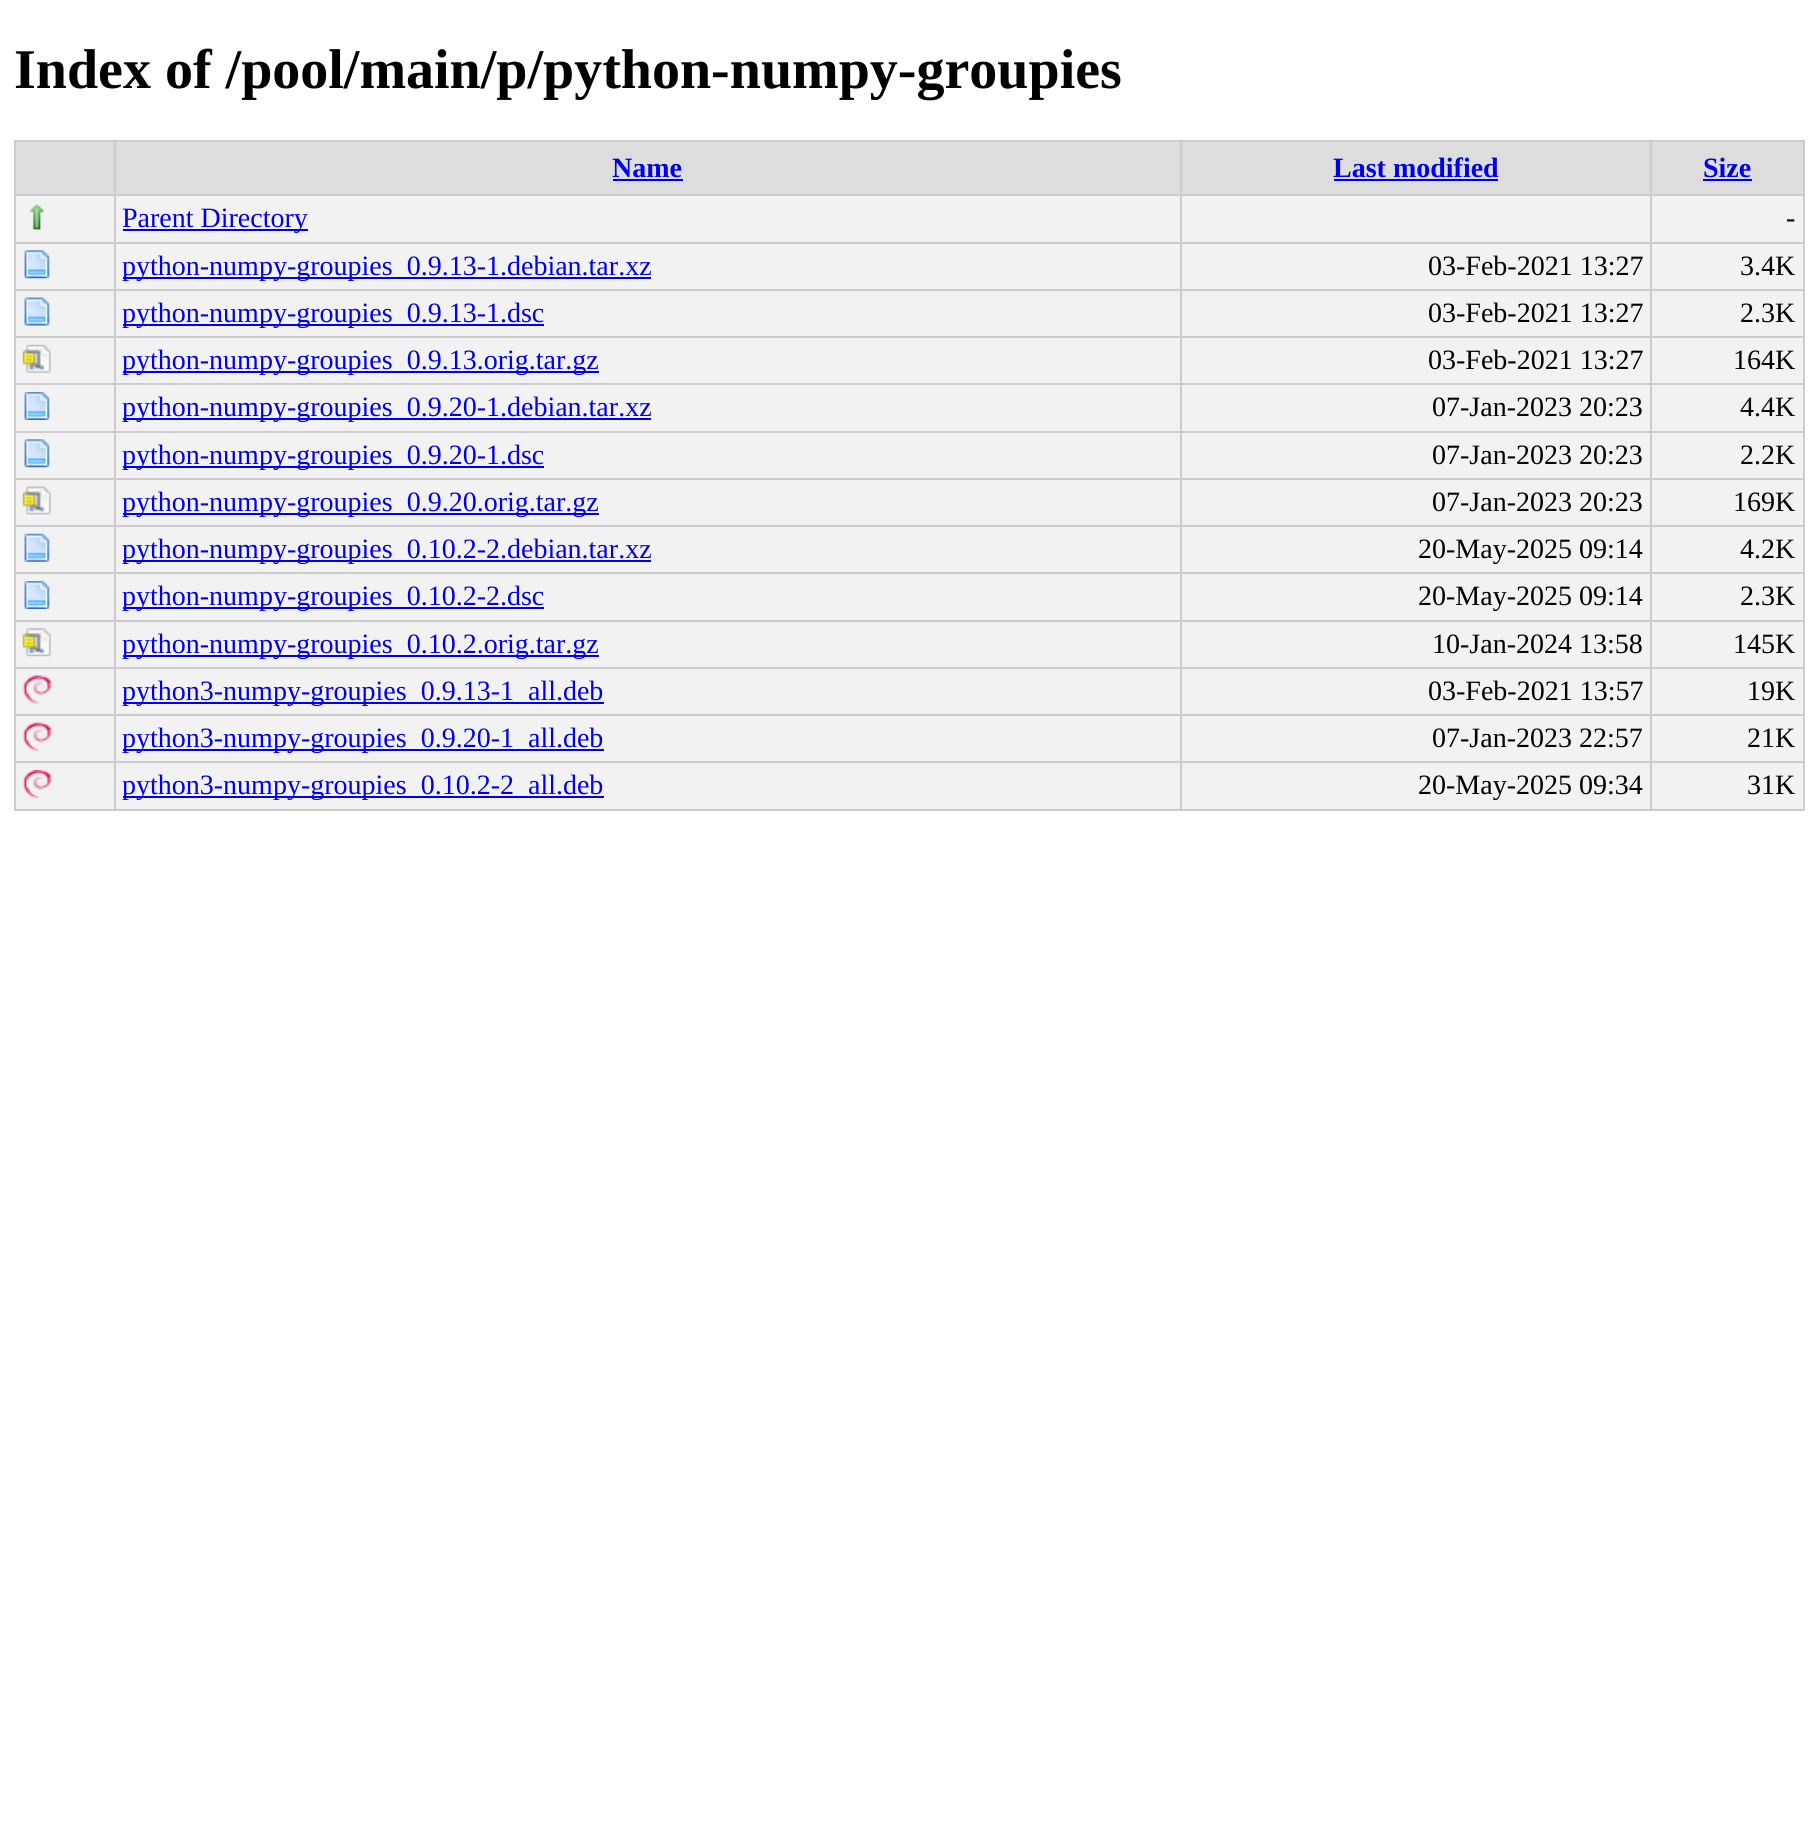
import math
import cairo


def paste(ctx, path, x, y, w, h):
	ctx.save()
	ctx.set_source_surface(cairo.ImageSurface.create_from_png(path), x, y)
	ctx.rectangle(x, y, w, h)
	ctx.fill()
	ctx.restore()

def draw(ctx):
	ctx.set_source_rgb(1, 1, 1)
	ctx.paint()
	ctx.select_font_face('Liberation Serif', cairo.FONT_SLANT_NORMAL, cairo.FONT_WEIGHT_BOLD)
	ctx.set_font_size(56)
	ctx.set_source_rgb(0, 0, 0)
	ctx.move_to(14, 88)
	ctx.show_text('Index of /pool/main/p/python-numpy-groupies')
	ctx.set_source_rgb(0.867, 0.867, 0.867)
	ctx.rectangle(16, 142, 98, 52)
	ctx.fill()
	ctx.set_source_rgb(0.8, 0.8, 0.8)
	ctx.rectangle(1650, 140, 154, 2)
	ctx.rectangle(1650, 194, 154, 2)
	ctx.fill()
	ctx.set_source_rgb(0.949, 0.949, 0.949)
	ctx.rectangle(16, 196, 1787, 46)
	ctx.fill()
	ctx.set_source_rgb(0.8, 0.8, 0.8)
	ctx.rectangle(1650, 242, 154, 2)
	ctx.fill()
	ctx.set_source_rgb(0.949, 0.949, 0.949)
	ctx.rectangle(16, 244, 1787, 45)
	ctx.fill()
	ctx.set_source_rgb(0.8, 0.8, 0.8)
	ctx.rectangle(1650, 289, 154, 2)
	ctx.fill()
	ctx.set_source_rgb(0.949, 0.949, 0.949)
	ctx.rectangle(16, 291, 1787, 45)
	ctx.fill()
	ctx.set_source_rgb(0.8, 0.8, 0.8)
	ctx.rectangle(1650, 336, 154, 2)
	ctx.fill()
	ctx.set_source_rgb(0.949, 0.949, 0.949)
	ctx.rectangle(16, 338, 1787, 45)
	ctx.fill()
	ctx.set_source_rgb(0.8, 0.8, 0.8)
	ctx.rectangle(1650, 383, 154, 2)
	ctx.fill()
	ctx.set_source_rgb(0.949, 0.949, 0.949)
	ctx.rectangle(16, 385, 1787, 46)
	ctx.fill()
	ctx.set_source_rgb(0.8, 0.8, 0.8)
	ctx.rectangle(1650, 431, 154, 2)
	ctx.fill()
	ctx.set_source_rgb(0.949, 0.949, 0.949)
	ctx.rectangle(16, 433, 1787, 45)
	ctx.fill()
	ctx.set_source_rgb(0.8, 0.8, 0.8)
	ctx.rectangle(1650, 478, 154, 2)
	ctx.fill()
	ctx.set_source_rgb(0.949, 0.949, 0.949)
	ctx.rectangle(16, 480, 1787, 45)
	ctx.fill()
	ctx.set_source_rgb(0.8, 0.8, 0.8)
	ctx.rectangle(1650, 525, 154, 2)
	ctx.fill()
	ctx.set_source_rgb(0.949, 0.949, 0.949)
	ctx.rectangle(16, 527, 1787, 45)
	ctx.fill()
	ctx.set_source_rgb(0.8, 0.8, 0.8)
	ctx.rectangle(1650, 572, 154, 2)
	ctx.fill()
	ctx.set_source_rgb(0.949, 0.949, 0.949)
	ctx.rectangle(16, 574, 1787, 46)
	ctx.fill()
	ctx.set_source_rgb(0.8, 0.8, 0.8)
	ctx.rectangle(1650, 620, 154, 2)
	ctx.fill()
	ctx.set_source_rgb(0.949, 0.949, 0.949)
	ctx.rectangle(16, 622, 1787, 45)
	ctx.fill()
	ctx.set_source_rgb(0.8, 0.8, 0.8)
	ctx.rectangle(1650, 667, 154, 2)
	ctx.fill()
	ctx.set_source_rgb(0.949, 0.949, 0.949)
	ctx.rectangle(16, 669, 1787, 45)
	ctx.fill()
	ctx.set_source_rgb(0.8, 0.8, 0.8)
	ctx.rectangle(1650, 714, 154, 2)
	ctx.fill()
	ctx.set_source_rgb(0.949, 0.949, 0.949)
	ctx.rectangle(16, 716, 1787, 45)
	ctx.fill()
	ctx.set_source_rgb(0.8, 0.8, 0.8)
	ctx.rectangle(1650, 761, 154, 2)
	ctx.fill()
	ctx.set_source_rgb(0.949, 0.949, 0.949)
	ctx.rectangle(16, 763, 1787, 46)
	ctx.fill()
	ctx.set_source_rgb(0.8, 0.8, 0.8)
	ctx.rectangle(1803, 761, 2, 49)
	ctx.rectangle(1650, 809, 154, 2)
	ctx.rectangle(1650, 761, 2, 49)
	ctx.rectangle(1180, 761, 472, 2)
	ctx.rectangle(1650, 714, 2, 49)
	ctx.rectangle(1180, 714, 472, 2)
	ctx.rectangle(1650, 667, 2, 49)
	ctx.rectangle(1180, 667, 472, 2)
	ctx.rectangle(1650, 620, 2, 49)
	ctx.rectangle(1180, 620, 472, 2)
	ctx.rectangle(1650, 572, 2, 49)
	ctx.rectangle(1180, 572, 472, 2)
	ctx.rectangle(1650, 525, 2, 49)
	ctx.rectangle(1180, 525, 472, 2)
	ctx.rectangle(1650, 478, 2, 49)
	ctx.rectangle(1180, 478, 472, 2)
	ctx.rectangle(1650, 431, 2, 49)
	ctx.rectangle(1180, 431, 472, 2)
	ctx.rectangle(1650, 383, 2, 49)
	ctx.rectangle(1180, 383, 472, 2)
	ctx.rectangle(1650, 336, 2, 49)
	ctx.rectangle(1180, 336, 472, 2)
	ctx.rectangle(1650, 289, 2, 49)
	ctx.rectangle(1180, 289, 472, 2)
	ctx.rectangle(1650, 242, 2, 49)
	ctx.rectangle(1180, 242, 472, 2)
	ctx.rectangle(1650, 194, 2, 49)
	ctx.rectangle(1180, 194, 472, 2)
	ctx.rectangle(1650, 140, 2, 56)
	ctx.rectangle(1180, 140, 472, 2)
	ctx.rectangle(1180, 809, 472, 2)
	ctx.rectangle(1180, 761, 2, 49)
	ctx.rectangle(114, 761, 1067, 2)
	ctx.rectangle(1180, 714, 2, 49)
	ctx.rectangle(114, 714, 1067, 2)
	ctx.rectangle(1180, 667, 2, 49)
	ctx.rectangle(114, 667, 1067, 2)
	ctx.rectangle(1180, 620, 2, 49)
	ctx.rectangle(114, 620, 1067, 2)
	ctx.rectangle(1180, 572, 2, 49)
	ctx.rectangle(114, 572, 1067, 2)
	ctx.rectangle(1180, 525, 2, 49)
	ctx.rectangle(114, 525, 1067, 2)
	ctx.rectangle(1180, 478, 2, 49)
	ctx.rectangle(114, 478, 1067, 2)
	ctx.rectangle(1180, 431, 2, 49)
	ctx.rectangle(114, 431, 1067, 2)
	ctx.rectangle(1180, 383, 2, 49)
	ctx.rectangle(114, 383, 1067, 2)
	ctx.rectangle(1180, 336, 2, 49)
	ctx.rectangle(114, 336, 1067, 2)
	ctx.rectangle(1180, 289, 2, 49)
	ctx.rectangle(114, 289, 1067, 2)
	ctx.rectangle(1180, 242, 2, 49)
	ctx.rectangle(114, 242, 1067, 2)
	ctx.rectangle(1180, 194, 2, 49)
	ctx.rectangle(114, 194, 1067, 2)
	ctx.rectangle(1180, 140, 2, 56)
	ctx.rectangle(114, 140, 1067, 2)
	ctx.rectangle(114, 809, 1067, 2)
	ctx.rectangle(114, 761, 2, 49)
	ctx.rectangle(14, 761, 102, 2)
	ctx.rectangle(114, 714, 2, 49)
	ctx.rectangle(14, 714, 102, 2)
	ctx.rectangle(114, 667, 2, 49)
	ctx.rectangle(14, 667, 102, 2)
	ctx.rectangle(114, 620, 2, 49)
	ctx.rectangle(14, 620, 102, 2)
	ctx.rectangle(114, 572, 2, 49)
	ctx.rectangle(14, 572, 102, 2)
	ctx.rectangle(114, 525, 2, 49)
	ctx.rectangle(14, 525, 102, 2)
	ctx.rectangle(114, 478, 2, 49)
	ctx.rectangle(14, 478, 102, 2)
	ctx.rectangle(114, 431, 2, 49)
	ctx.rectangle(14, 431, 102, 2)
	ctx.rectangle(114, 383, 2, 49)
	ctx.rectangle(14, 383, 102, 2)
	ctx.rectangle(114, 336, 2, 49)
	ctx.rectangle(14, 336, 102, 2)
	ctx.rectangle(114, 289, 2, 49)
	ctx.rectangle(14, 289, 102, 2)
	ctx.rectangle(114, 242, 2, 49)
	ctx.rectangle(14, 242, 102, 2)
	ctx.rectangle(114, 194, 2, 49)
	ctx.rectangle(14, 194, 102, 2)
	ctx.rectangle(114, 140, 2, 56)
	ctx.rectangle(14, 140, 102, 2)
	ctx.rectangle(14, 809, 102, 2)
	ctx.rectangle(14, 761, 2, 49)
	ctx.rectangle(14, 714, 2, 49)
	ctx.rectangle(14, 667, 2, 49)
	ctx.rectangle(14, 620, 2, 49)
	ctx.rectangle(14, 572, 2, 49)
	ctx.rectangle(14, 525, 2, 49)
	ctx.rectangle(14, 478, 2, 49)
	ctx.rectangle(14, 431, 2, 49)
	ctx.rectangle(14, 383, 2, 49)
	ctx.rectangle(14, 336, 2, 49)
	ctx.rectangle(14, 289, 2, 49)
	ctx.rectangle(14, 242, 2, 49)
	ctx.rectangle(14, 194, 2, 49)
	ctx.rectangle(14, 140, 2, 56)
	ctx.fill()
	ctx.set_source_rgb(0.867, 0.867, 0.867)
	ctx.rectangle(116, 142, 1064, 52)
	ctx.fill()
	ctx.set_font_size(28)
	ctx.set_source_rgb(0, 0, 0.933)
	ctx.move_to(612, 177)
	ctx.show_text('Name')
	ctx.rectangle(613, 179, 70, 2)
	ctx.fill()
	ctx.set_source_rgb(0.867, 0.867, 0.867)
	ctx.rectangle(1182, 142, 468, 52)
	ctx.fill()
	ctx.set_source_rgb(0, 0, 0.933)
	ctx.move_to(1333, 177)
	ctx.show_text('Last modified')
	ctx.rectangle(1334, 179, 164, 2)
	ctx.fill()
	ctx.set_source_rgb(0.867, 0.867, 0.867)
	ctx.rectangle(1652, 142, 151, 52)
	ctx.fill()
	ctx.set_source_rgb(0.8, 0.8, 0.8)
	ctx.rectangle(1803, 714, 2, 49)
	ctx.rectangle(1803, 667, 2, 49)
	ctx.rectangle(1803, 620, 2, 49)
	ctx.rectangle(1803, 572, 2, 49)
	ctx.rectangle(1803, 525, 2, 49)
	ctx.rectangle(1803, 478, 2, 49)
	ctx.rectangle(1803, 431, 2, 49)
	ctx.rectangle(1803, 383, 2, 49)
	ctx.rectangle(1803, 336, 2, 49)
	ctx.rectangle(1803, 289, 2, 49)
	ctx.rectangle(1803, 242, 2, 49)
	ctx.rectangle(1803, 194, 2, 49)
	ctx.rectangle(1803, 140, 2, 56)
	ctx.fill()
	ctx.set_source_rgb(0, 0, 0.933)
	ctx.move_to(1703, 177)
	ctx.show_text('Size')
	ctx.rectangle(1703, 179, 49, 2)
	ctx.fill()
	paste(ctx, 'media/1.png', 29, 204, 16, 26)
	ctx.rectangle(123, 229, 185, 2)
	ctx.fill()
	ctx.select_font_face('Liberation Serif')
	ctx.move_to(122, 227)
	ctx.show_text('Parent Directory')
	ctx.set_source_rgb(0, 0, 0)
	ctx.move_to(1786, 227)
	ctx.show_text('-')
	paste(ctx, 'media/2.png', 24, 250, 26, 29)
	ctx.set_source_rgb(0, 0, 0.933)
	ctx.rectangle(123, 277, 528, 2)
	ctx.fill()
	ctx.move_to(122, 275)
	ctx.show_text('python-numpy-groupies_0.9.13-1.debian.tar.xz')
	ctx.set_source_rgb(0, 0, 0)
	ctx.move_to(1428, 275)
	ctx.show_text('03-Feb-2021 13:27')
	ctx.move_to(1740, 275)
	ctx.show_text('3.4K')
	paste(ctx, 'media/3.png', 24, 297, 26, 29)
	ctx.set_source_rgb(0, 0, 0.933)
	ctx.rectangle(123, 324, 421, 2)
	ctx.fill()
	ctx.move_to(122, 322)
	ctx.show_text('python-numpy-groupies_0.9.13-1.dsc')
	ctx.set_source_rgb(0, 0, 0)
	ctx.move_to(1428, 322)
	ctx.show_text('03-Feb-2021 13:27')
	ctx.move_to(1740, 322)
	ctx.show_text('2.3K')
	paste(ctx, 'media/4.png', 22, 344, 29, 29)
	ctx.set_source_rgb(0, 0, 0.933)
	ctx.rectangle(123, 371, 476, 2)
	ctx.fill()
	ctx.move_to(122, 369)
	ctx.show_text('python-numpy-groupies_0.9.13.orig.tar.gz')
	ctx.set_source_rgb(0, 0, 0)
	ctx.move_to(1428, 369)
	ctx.show_text('03-Feb-2021 13:27')
	ctx.move_to(1733, 369)
	ctx.show_text('164K')
	paste(ctx, 'media/5.png', 24, 392, 26, 28)
	ctx.set_source_rgb(0, 0, 0.933)
	ctx.rectangle(123, 418, 528, 2)
	ctx.fill()
	ctx.move_to(122, 416)
	ctx.show_text('python-numpy-groupies_0.9.20-1.debian.tar.xz')
	ctx.set_source_rgb(0, 0, 0)
	ctx.move_to(1432, 416)
	ctx.show_text('07-Jan-2023 20:23')
	ctx.move_to(1740, 416)
	ctx.show_text('4.4K')
	paste(ctx, 'media/2.png', 24, 439, 26, 29)
	ctx.set_source_rgb(0, 0, 0.933)
	ctx.rectangle(123, 466, 421, 2)
	ctx.fill()
	ctx.move_to(122, 464)
	ctx.show_text('python-numpy-groupies_0.9.20-1.dsc')
	ctx.set_source_rgb(0, 0, 0)
	ctx.move_to(1432, 464)
	ctx.show_text('07-Jan-2023 20:23')
	ctx.move_to(1740, 464)
	ctx.show_text('2.2K')
	paste(ctx, 'media/6.png', 22, 486, 29, 29)
	ctx.set_source_rgb(0, 0, 0.933)
	ctx.rectangle(123, 513, 476, 2)
	ctx.fill()
	ctx.move_to(122, 511)
	ctx.show_text('python-numpy-groupies_0.9.20.orig.tar.gz')
	ctx.set_source_rgb(0, 0, 0)
	ctx.move_to(1432, 511)
	ctx.show_text('07-Jan-2023 20:23')
	ctx.move_to(1733, 511)
	ctx.show_text('169K')
	paste(ctx, 'media/7.png', 24, 533, 26, 29)
	ctx.set_source_rgb(0, 0, 0.933)
	ctx.rectangle(123, 560, 528, 2)
	ctx.fill()
	ctx.move_to(122, 558)
	ctx.show_text('python-numpy-groupies_0.10.2-2.debian.tar.xz')
	ctx.set_source_rgb(0, 0, 0)
	ctx.move_to(1418, 558)
	ctx.show_text('20-May-2025 09:14')
	ctx.move_to(1740, 558)
	ctx.show_text('4.2K')
	paste(ctx, 'media/5.png', 24, 581, 26, 28)
	ctx.set_source_rgb(0, 0, 0.933)
	ctx.rectangle(123, 607, 421, 2)
	ctx.fill()
	ctx.move_to(122, 605)
	ctx.show_text('python-numpy-groupies_0.10.2-2.dsc')
	ctx.set_source_rgb(0, 0, 0)
	ctx.move_to(1418, 605)
	ctx.show_text('20-May-2025 09:14')
	ctx.move_to(1740, 605)
	ctx.show_text('2.3K')
	paste(ctx, 'media/8.png', 22, 628, 29, 29)
	ctx.set_source_rgb(0, 0, 0.933)
	ctx.rectangle(123, 655, 476, 2)
	ctx.fill()
	ctx.move_to(122, 653)
	ctx.show_text('python-numpy-groupies_0.10.2.orig.tar.gz')
	ctx.set_source_rgb(0, 0, 0)
	ctx.move_to(1432, 653)
	ctx.show_text('10-Jan-2024 13:58')
	ctx.move_to(1733, 653)
	ctx.show_text('145K')
	paste(ctx, 'media/9.png', 22, 675, 29, 29)
	ctx.set_source_rgb(0, 0, 0.933)
	ctx.rectangle(123, 702, 481, 2)
	ctx.fill()
	ctx.move_to(122, 700)
	ctx.show_text('python3-numpy-groupies_0.9.13-1_all.deb')
	ctx.set_source_rgb(0, 0, 0)
	ctx.move_to(1428, 700)
	ctx.show_text('03-Feb-2021 13:57')
	ctx.move_to(1747, 700)
	ctx.show_text('19K')
	paste(ctx, 'media/10.png', 22, 722, 29, 29)
	ctx.set_source_rgb(0, 0, 0.933)
	ctx.rectangle(123, 749, 481, 2)
	ctx.fill()
	ctx.move_to(122, 747)
	ctx.show_text('python3-numpy-groupies_0.9.20-1_all.deb')
	ctx.set_source_rgb(0, 0, 0)
	ctx.move_to(1432, 747)
	ctx.show_text('07-Jan-2023 22:57')
	ctx.move_to(1747, 747)
	ctx.show_text('21K')
	paste(ctx, 'media/11.png', 22, 770, 29, 28)
	ctx.set_source_rgb(0, 0, 0.933)
	ctx.rectangle(123, 796, 481, 2)
	ctx.fill()
	ctx.move_to(122, 794)
	ctx.show_text('python3-numpy-groupies_0.10.2-2_all.deb')
	ctx.set_source_rgb(0, 0, 0)
	ctx.move_to(1418, 794)
	ctx.show_text('20-May-2025 09:34')
	ctx.move_to(1747, 794)
	ctx.show_text('31K')


surface = cairo.ImageSurface(cairo.FORMAT_RGB24, 1818, 1829)
ctx = cairo.Context(surface)
options = cairo.FontOptions()
options.set_hint_metrics(cairo.HINT_METRICS_OFF)
options.set_hint_style(cairo.HINT_STYLE_NONE)
ctx.set_font_options(options)
ctx.set_miter_limit(4)
draw(ctx)
surface.write_to_png('image.png')
